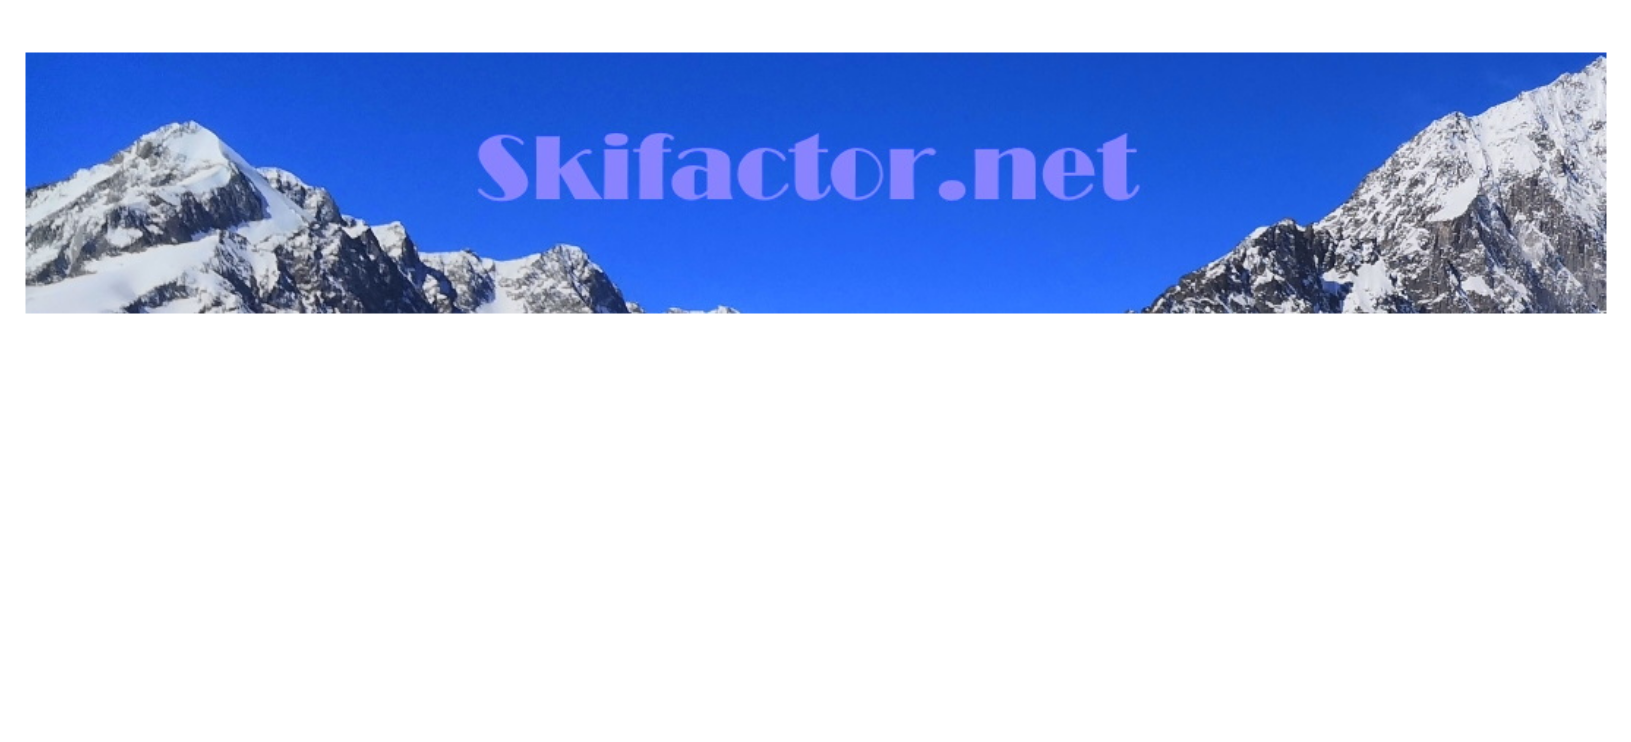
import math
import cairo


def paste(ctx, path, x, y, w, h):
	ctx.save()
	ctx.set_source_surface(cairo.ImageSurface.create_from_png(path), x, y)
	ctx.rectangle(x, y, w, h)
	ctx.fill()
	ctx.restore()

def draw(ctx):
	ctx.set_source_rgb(1, 1, 1)
	ctx.paint()
	paste(ctx, 'media/1.png', 25, 52, 1582, 262)


surface = cairo.ImageSurface(cairo.FORMAT_RGB24, 1631, 742)
ctx = cairo.Context(surface)
options = cairo.FontOptions()
options.set_hint_metrics(cairo.HINT_METRICS_OFF)
options.set_hint_style(cairo.HINT_STYLE_NONE)
ctx.set_font_options(options)
ctx.set_miter_limit(4)
draw(ctx)
surface.write_to_png('image.png')
